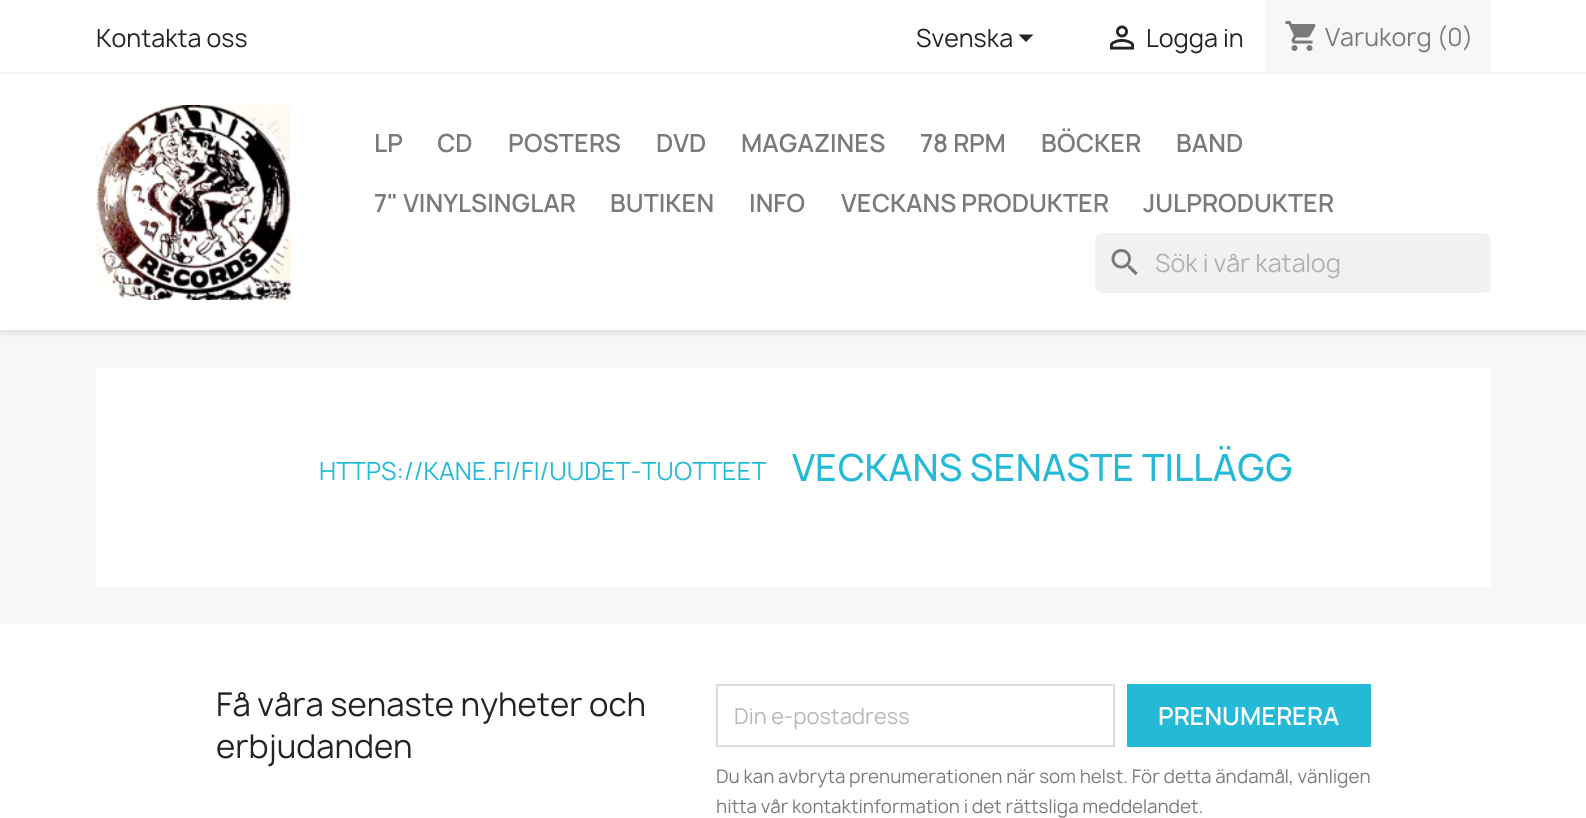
import math
import cairo


def round_path(ctx, x, y, w, h, r):
	ctx.new_sub_path()
	for i, (u, v) in enumerate([(x + w - r, y + h - r), (x + r, y + h - r), (x + r, y + r), (x + w - r, y + r)]):
		ctx.arc(u, v, r, i * math.pi / 2, (i + 1) * math.pi / 2)
	ctx.close_path()

def blur_box(ctx, x, y, w, h, r, blur, alpha):
	ctx.push_group_with_content(cairo.CONTENT_ALPHA)
	ctx.set_operator(cairo.OPERATOR_SOURCE)
	for i in range(15, -16, -2):
		e = blur * i / 6
		if min(w, h) + 2 * e > 0:
			ctx.set_source_rgba(0, 0, 0, alpha * math.erfc((i - 1) / 8.5) / 2)
			round_path(ctx, x - e, y - e, w + 2 * e, h + 2 * e, max(0, min(r + e + blur * .6, min(w, h) / 2 + e)))
			ctx.fill()
	ctx.mask(ctx.pop_group())

def paste(ctx, path, x, y, w, h):
	ctx.save()
	ctx.set_source_surface(cairo.ImageSurface.create_from_png(path), x, y)
	ctx.rectangle(x, y, w, h)
	ctx.fill()
	ctx.restore()

def draw(ctx):
	ctx.set_source_rgb(1, 1, 1)
	ctx.paint()
	ctx.set_source_rgb(0.965, 0.965, 0.965)
	ctx.rectangle(0, 330, 1586, 294)
	ctx.fill()
	ctx.save()
	ctx.rectangle(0, 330, 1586, 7)
	ctx.clip()
	ctx.set_source_rgb(0, 0, 0)
	blur_box(ctx, 0, 3, 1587, 330, 0, 4, 0.11)
	ctx.restore()
	ctx.rectangle(0, 72, 1586, 3)
	ctx.fill()
	ctx.select_font_face('Manrope')
	ctx.set_font_size(24)
	ctx.set_source_rgb(0.137, 0.137, 0.137)
	ctx.move_to(96, 47)
	ctx.show_text('Kontakta oss')
	ctx.move_to(916, 47)
	ctx.show_text('Svenska')
	ctx.new_path()
	ctx.move_to(1018.5, 34.5)
	ctx.line_to(1033.5, 34.5)
	ctx.line_to(1026, 42)
	ctx.close_path()
	ctx.fill()
	paste(ctx, 'media/1.png', 1109, 25, 26, 25)
	ctx.move_to(1146, 47)
	ctx.show_text('Logga in')
	ctx.set_source_rgb(0.965, 0.965, 0.965)
	ctx.rectangle(1266, 0, 225, 72)
	ctx.fill()
	paste(ctx, 'media/2.png', 1285, 21, 31, 30)
	ctx.set_source_rgb(0.478, 0.478, 0.478)
	ctx.move_to(1325, 46)
	ctx.show_text('Varukorg (0)')
	paste(ctx, 'media/3.png', 96, 105, 195, 195)
	ctx.select_font_face('Manrope SemiBold')
	for x, y, s in [
		(374, 152, 'LP'),
		(437, 152, 'CD'),
		(508, 152, 'POSTERS'),
		(656, 152, 'DVD'),
		(741, 152, 'MAGAZINES'),
		(920, 152, '78 RPM'),
		(1041, 152, 'BÖCKER'),
		(1176, 152, 'BAND'),
		(374, 212, '7" VINYLSINGLAR'),
		(610, 212, 'BUTIKEN'),
		(749, 212, 'INFO'),
		(841, 212, 'VECKANS PRODUKTER'),
		(1143, 212, 'JULPRODUKTER'),
	]:
		ctx.move_to(x, y)
		ctx.show_text(s)
	ctx.set_source_rgb(0.945, 0.945, 0.945)
	round_path(ctx, 1095, 233, 396, 60, 8)
	ctx.fill()
	paste(ctx, 'media/4.png', 1111, 249, 27, 27)
	ctx.select_font_face('Manrope')
	ctx.set_source_rgb(0.694, 0.694, 0.694)
	ctx.move_to(1155, 272)
	ctx.show_text('Sök i vår katalog')
	ctx.set_source_rgb(1, 1, 1)
	round_path(ctx, 96, 368, 1395, 219, 3)
	ctx.fill()
	ctx.set_source_rgb(0.141, 0.725, 0.843)
	ctx.move_to(319, 480)
	ctx.show_text('HTTPS://KANE.FI/FI/UUDET-TUOTTEET')
	ctx.select_font_face('Manrope Medium')
	ctx.set_font_size(36)
	ctx.move_to(792, 481)
	ctx.show_text('VECKANS SENASTE TILLÄGG')
	ctx.select_font_face('Manrope')
	ctx.set_font_size(31.5)
	ctx.set_source_rgb(0.137, 0.137, 0.137)
	ctx.move_to(216, 716)
	ctx.show_text('Få våra senaste nyheter och')
	ctx.move_to(216, 758)
	ctx.show_text('erbjudanden')
	ctx.rectangle(717, 685, 397, 61)
	ctx.set_source_rgb(0.867, 0.867, 0.867)
	ctx.stroke()
	ctx.set_font_size(21)
	ctx.set_source_rgb(0.718, 0.718, 0.718)
	ctx.move_to(734, 724)
	ctx.show_text('Din e-postadress')
	ctx.set_source_rgb(0.141, 0.725, 0.843)
	ctx.rectangle(1127, 684, 244, 63)
	ctx.fill()
	ctx.select_font_face('Manrope SemiBold')
	ctx.set_font_size(24)
	ctx.set_source_rgb(1, 1, 1)
	ctx.move_to(1158, 725)
	ctx.show_text('PRENUMERERA')
	ctx.select_font_face('Manrope')
	ctx.set_font_size(18)
	ctx.set_source_rgb(0.478, 0.478, 0.478)
	ctx.move_to(716, 783)
	ctx.show_text('Du kan avbryta prenumerationen när som helst. För detta ändamål, vänligen')
	ctx.move_to(716, 813)
	ctx.show_text('hitta vår kontaktinformation i det rättsliga meddelandet.')


surface = cairo.ImageSurface(cairo.FORMAT_RGB24, 1586, 818)
ctx = cairo.Context(surface)
options = cairo.FontOptions()
options.set_hint_metrics(cairo.HINT_METRICS_OFF)
options.set_hint_style(cairo.HINT_STYLE_NONE)
ctx.set_font_options(options)
ctx.set_miter_limit(4)
draw(ctx)
surface.write_to_png('image.png')
